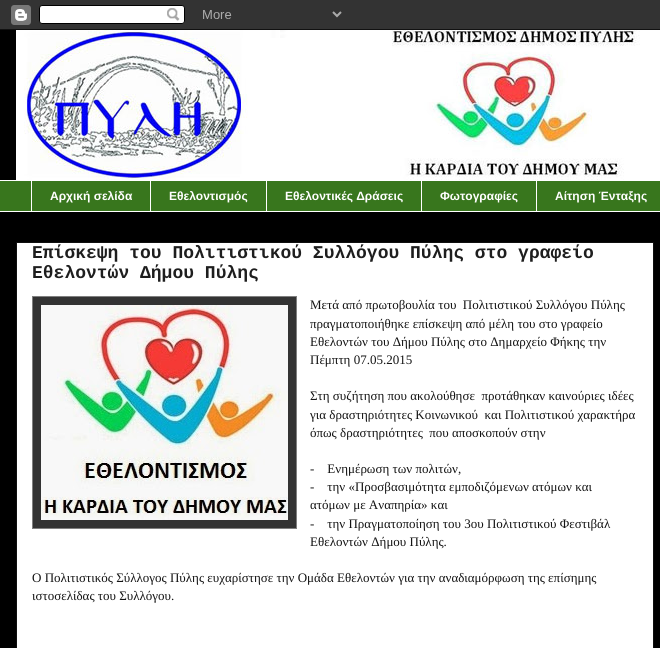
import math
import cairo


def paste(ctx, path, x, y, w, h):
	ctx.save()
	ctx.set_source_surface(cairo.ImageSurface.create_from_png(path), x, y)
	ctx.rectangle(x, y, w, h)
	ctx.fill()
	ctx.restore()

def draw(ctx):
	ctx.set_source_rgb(0, 0, 0)
	ctx.paint()
	paste(ctx, 'media/1.png', 0, 0, 660, 30)
	paste(ctx, 'media/2.png', 16, 30, 644, 150)
	ctx.set_source_rgb(0.22, 0.463, 0.114)
	ctx.rectangle(0, 181, 660, 30)
	ctx.fill()
	ctx.set_source_rgb(1, 1, 1)
	ctx.rectangle(0, 180, 660, 1)
	ctx.rectangle(31, 180, 1, 32)
	ctx.fill()
	ctx.select_font_face('Liberation Sans', cairo.FONT_SLANT_NORMAL, cairo.FONT_WEIGHT_BOLD)
	ctx.set_font_size(12)
	ctx.move_to(50, 200)
	ctx.show_text('Αρχική σελίδα')
	ctx.rectangle(150, 180, 1, 32)
	ctx.fill()
	ctx.move_to(169, 200)
	ctx.show_text('Εθελοντισμός')
	ctx.rectangle(266, 180, 1, 32)
	ctx.fill()
	ctx.move_to(285, 200)
	ctx.show_text('Εθελοντικές Δράσεις')
	ctx.rectangle(421, 180, 1, 32)
	ctx.fill()
	ctx.move_to(440, 200)
	ctx.show_text('Φωτογραφίες')
	ctx.rectangle(536, 180, 1, 32)
	ctx.fill()
	ctx.move_to(555, 200)
	ctx.show_text('Αίτηση Ένταξης')
	ctx.rectangle(0, 211, 660, 1)
	ctx.fill()
	ctx.rectangle(16.5, 242.5, 637, 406)
	ctx.fill_preserve()
	ctx.set_source_rgb(0.059, 0.059, 0.059)
	ctx.set_line_width(1)
	ctx.stroke()
	ctx.select_font_face('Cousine', cairo.FONT_SLANT_NORMAL, cairo.FONT_WEIGHT_BOLD)
	ctx.set_font_size(18)
	ctx.set_source_rgb(0.118, 0.118, 0.118)
	ctx.move_to(32, 258)
	ctx.show_text('Επίσκεψη του Πολιτιστικού Συλλόγου Πύλης στο γραφείο')
	ctx.move_to(32, 278)
	ctx.show_text('Εθελοντών Δήμου Πύλης')
	ctx.set_source_rgb(0.2, 0.2, 0.2)
	ctx.rectangle(32.5, 296.5, 264, 232)
	ctx.fill_preserve()
	ctx.set_source_rgb(0.498, 0.498, 0.498)
	ctx.stroke()
	paste(ctx, 'media/3.png', 41, 305, 247, 215)
	ctx.select_font_face('Liberation Serif')
	ctx.set_font_size(13)
	ctx.set_source_rgb(0.078, 0.078, 0.078)
	for x, y, s in [
		(310, 309, 'Μετά από πρωτοβουλία του  Πολιτιστικού Συλλόγου Πύλης'),
		(310, 328, 'πραγματοποιήθηκε επίσκεψη από μέλη του στο γραφείο'),
		(310, 346, 'Εθελοντών του Δήμου Πύλης στο Δημαρχείο Φήκης την'),
		(310, 364, 'Πέμπτη 07.05.2015'),
		(310, 400, 'Στη συζήτηση που ακολούθησε  προτάθηκαν καινούριες ιδέες'),
		(310, 419, 'για δραστηριότητες Κοινωνικού  και Πολιτιστικού χαρακτήρα'),
		(310, 437, 'όπως δραστηριότητες  που αποσκοπούν στην'),
		(310, 473, '-    Ενημέρωση των πολιτών,'),
		(310, 491, '-    την «Προσβασιμότητα εμποδιζόμενων ατόμων και'),
		(310, 509, 'ατόμων με Αναπηρία» και'),
		(310, 528, '-    την Πραγματοποίηση του 3ου Πολιτιστικού Φεστιβάλ'),
		(310, 546, 'Εθελοντών Δήμου Πύλης.'),
		(32, 582, 'Ο Πολιτιστικός Σύλλογος Πύλης ευχαρίστησε την Ομάδα Εθελοντών για την αναδιαμόρφωση της επίσημης'),
		(32, 600, 'ιστοσελίδας του Συλλόγου.'),
	]:
		ctx.move_to(x, y)
		ctx.show_text(s)


surface = cairo.ImageSurface(cairo.FORMAT_RGB24, 660, 648)
ctx = cairo.Context(surface)
options = cairo.FontOptions()
options.set_hint_metrics(cairo.HINT_METRICS_OFF)
options.set_hint_style(cairo.HINT_STYLE_NONE)
ctx.set_font_options(options)
ctx.set_miter_limit(4)
draw(ctx)
surface.write_to_png('image.png')
